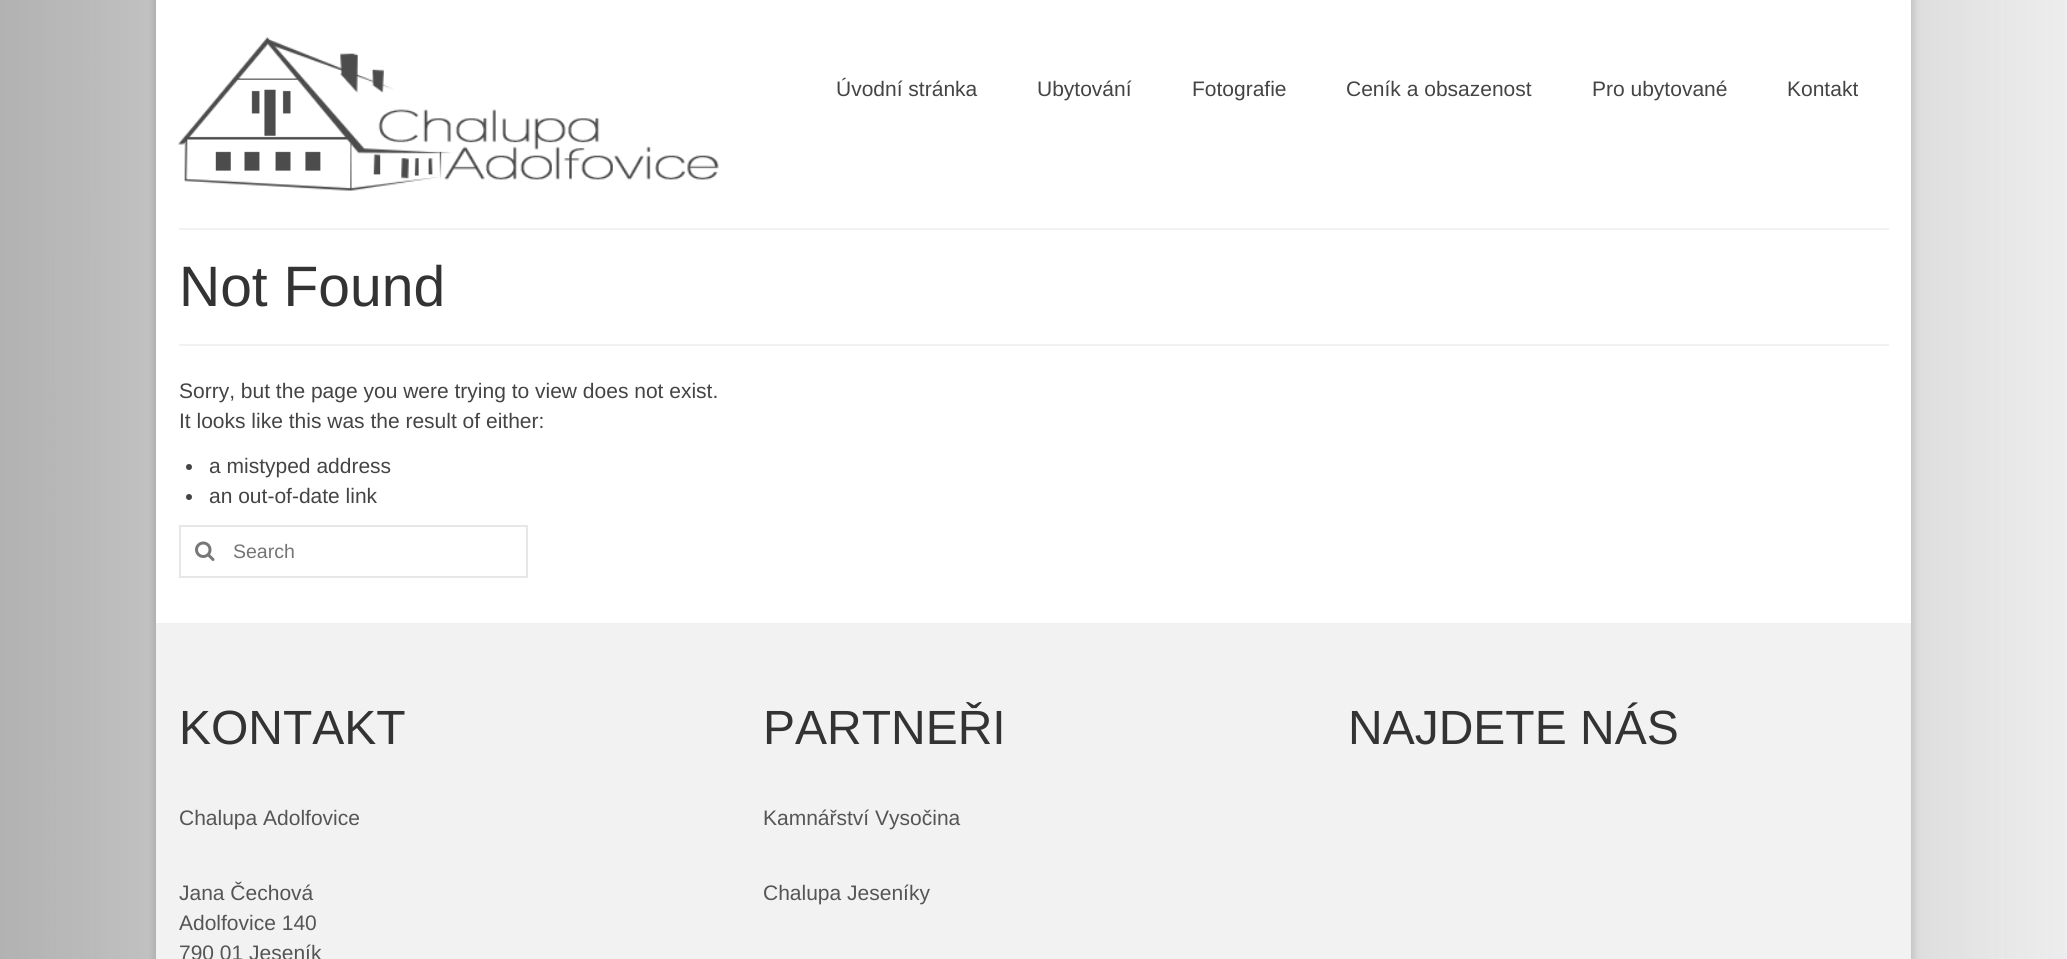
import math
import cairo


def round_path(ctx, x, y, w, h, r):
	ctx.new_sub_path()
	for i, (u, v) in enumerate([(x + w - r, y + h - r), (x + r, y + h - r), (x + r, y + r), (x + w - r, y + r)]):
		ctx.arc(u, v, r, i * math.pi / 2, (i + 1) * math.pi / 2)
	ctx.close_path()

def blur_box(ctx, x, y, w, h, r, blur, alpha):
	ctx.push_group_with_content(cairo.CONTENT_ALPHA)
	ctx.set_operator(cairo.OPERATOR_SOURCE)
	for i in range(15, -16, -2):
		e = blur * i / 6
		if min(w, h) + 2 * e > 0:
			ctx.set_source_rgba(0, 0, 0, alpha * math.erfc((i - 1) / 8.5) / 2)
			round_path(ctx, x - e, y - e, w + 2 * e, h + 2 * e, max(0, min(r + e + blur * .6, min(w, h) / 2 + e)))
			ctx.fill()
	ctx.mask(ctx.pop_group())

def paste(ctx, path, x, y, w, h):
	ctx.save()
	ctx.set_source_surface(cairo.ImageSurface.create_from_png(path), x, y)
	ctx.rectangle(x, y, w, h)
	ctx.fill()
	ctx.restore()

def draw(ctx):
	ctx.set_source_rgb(1, 1, 1)
	ctx.paint()
	paste(ctx, 'media/1.png', 0, 0, 2067, 959)
	ctx.set_source_rgb(0, 0, 0)
	blur_box(ctx, 155, -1, 1758, 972, 0, 4, 0.16)
	ctx.set_source_rgb(1, 1, 1)
	ctx.rectangle(156, 0, 1755, 623)
	ctx.fill()
	paste(ctx, 'media/2.png', 178, 37, 541, 154)
	ctx.select_font_face('Liberation Sans')
	ctx.set_font_size(21)
	ctx.set_source_rgb(0.267, 0.267, 0.267)
	for x, y, s in [
		(836, 96, 'Úvodní stránka'),
		(1037, 96, 'Ubytování'),
		(1192, 96, 'Fotografie'),
		(1346, 96, 'Ceník a obsazenost'),
		(1592, 96, 'Pro ubytované'),
		(1787, 96, 'Kontakt'),
	]:
		ctx.move_to(x, y)
		ctx.show_text(s)
	ctx.set_source_rgb(0.949, 0.949, 0.949)
	ctx.rectangle(179, 228, 1710, 2)
	ctx.fill()
	ctx.rectangle(179, 344, 1710, 2)
	ctx.fill()
	ctx.set_font_size(57)
	ctx.set_source_rgb(0.2, 0.2, 0.2)
	ctx.move_to(179, 306)
	ctx.show_text('Not Found')
	ctx.set_font_size(21)
	ctx.set_source_rgb(0.267, 0.267, 0.267)
	ctx.move_to(179, 398)
	ctx.show_text('Sorry, but the page you were trying to view does not exist.')
	ctx.move_to(179, 428)
	ctx.show_text('It looks like this was the result of either:')
	ctx.new_path()
	ctx.arc(189, 467, 3, 0, 2 * math.pi)
	ctx.fill()
	ctx.move_to(209, 473)
	ctx.show_text('a mistyped address')
	ctx.new_path()
	ctx.arc(189, 497, 3, 0, 2 * math.pi)
	ctx.fill()
	ctx.move_to(209, 503)
	ctx.show_text('an out-of-date link')
	ctx.rectangle(180, 526, 347, 51)
	ctx.set_source_rgb(0.906, 0.906, 0.906)
	ctx.stroke()
	paste(ctx, 'media/3.png', 195, 541, 20, 20)
	ctx.set_font_size(19.5)
	ctx.set_source_rgb(0.459, 0.459, 0.459)
	ctx.move_to(233, 558)
	ctx.show_text('Search')
	ctx.set_source_rgb(0.949, 0.949, 0.949)
	ctx.rectangle(156, 623, 1755, 336)
	ctx.fill()
	ctx.set_font_size(48)
	ctx.set_source_rgb(0.2, 0.2, 0.2)
	ctx.move_to(179, 744)
	ctx.show_text('KONTAKT')
	ctx.set_font_size(21)
	ctx.set_source_rgb(0.333, 0.333, 0.333)
	for x, y, s in [
		(179, 825, 'Chalupa Adolfovice'),
		(179, 900, 'Jana Čechová'),
		(179, 930, 'Adolfovice 140'),
		(179, 960, '790 01 Jeseník'),
	]:
		ctx.move_to(x, y)
		ctx.show_text(s)
	ctx.set_font_size(48)
	ctx.set_source_rgb(0.2, 0.2, 0.2)
	ctx.move_to(763, 744)
	ctx.show_text('PARTNEŘI')
	ctx.set_font_size(21)
	ctx.set_source_rgb(0.333, 0.333, 0.333)
	ctx.move_to(763, 825)
	ctx.show_text('Kamnářství Vysočina')
	ctx.move_to(763, 900)
	ctx.show_text('Chalupa Jeseníky')
	ctx.set_font_size(48)
	ctx.set_source_rgb(0.2, 0.2, 0.2)
	ctx.move_to(1348, 744)
	ctx.show_text('NAJDETE NÁS')


surface = cairo.ImageSurface(cairo.FORMAT_RGB24, 2067, 959)
ctx = cairo.Context(surface)
options = cairo.FontOptions()
options.set_hint_metrics(cairo.HINT_METRICS_OFF)
options.set_hint_style(cairo.HINT_STYLE_NONE)
ctx.set_font_options(options)
ctx.set_miter_limit(4)
draw(ctx)
surface.write_to_png('image.png')
